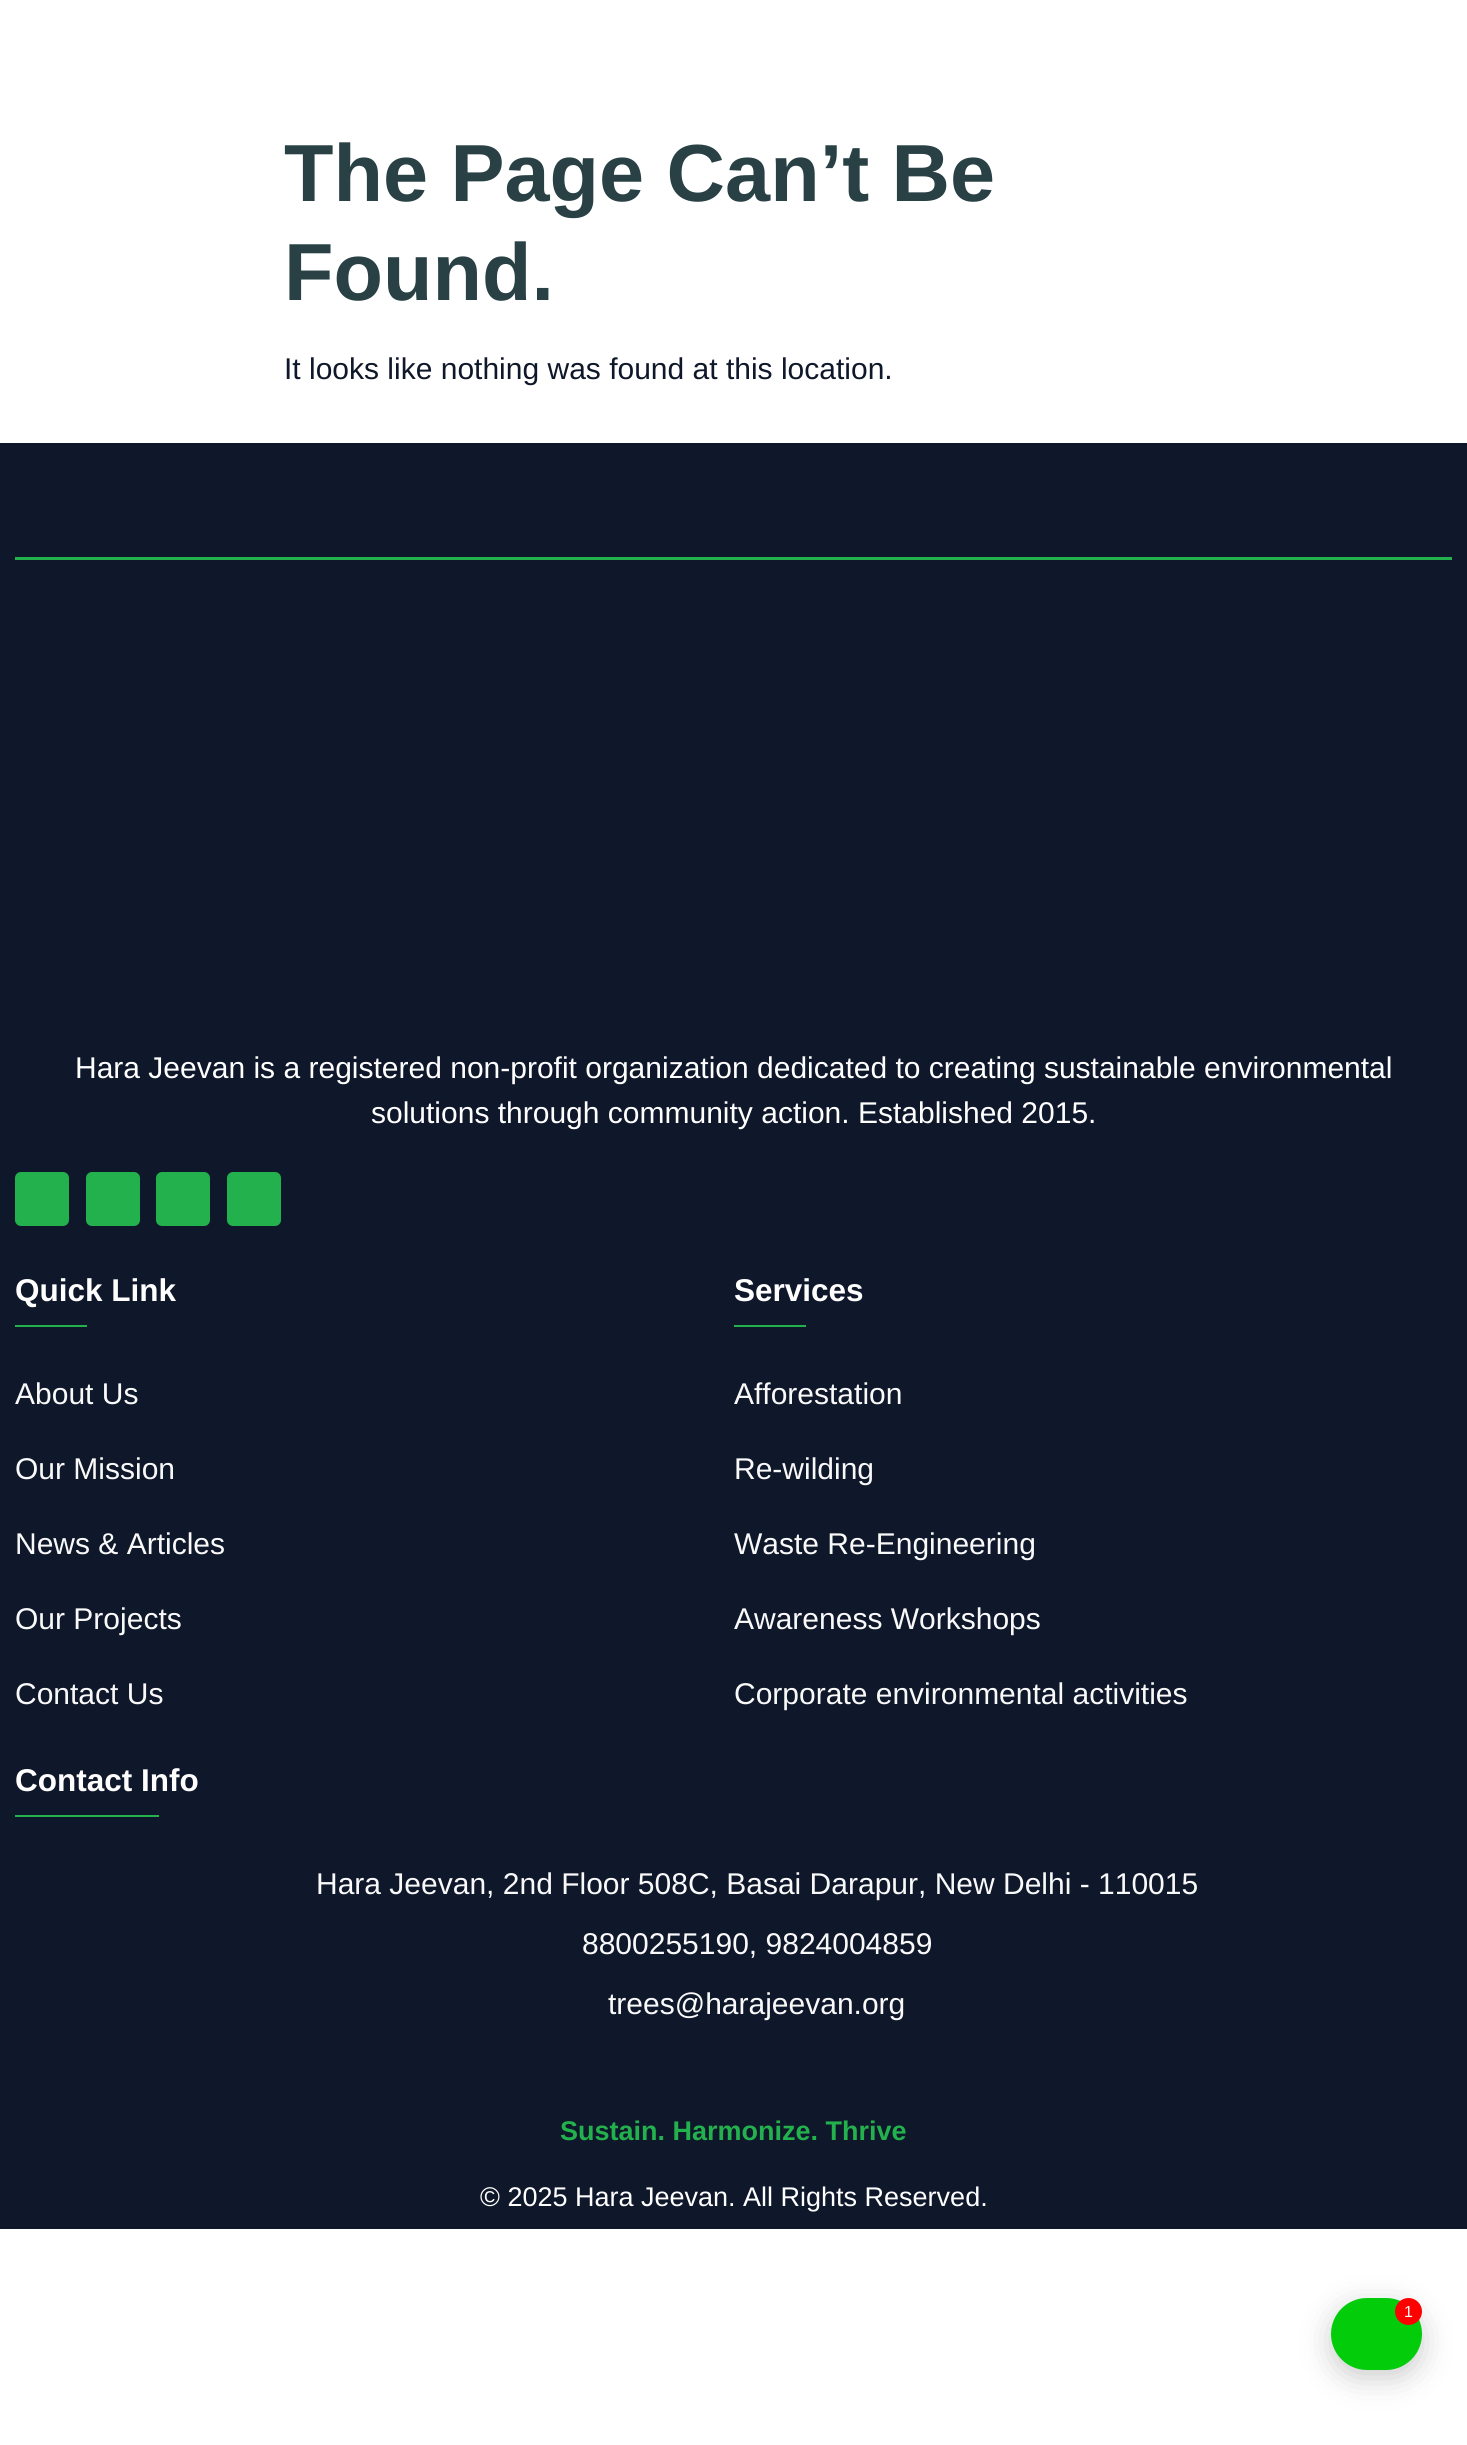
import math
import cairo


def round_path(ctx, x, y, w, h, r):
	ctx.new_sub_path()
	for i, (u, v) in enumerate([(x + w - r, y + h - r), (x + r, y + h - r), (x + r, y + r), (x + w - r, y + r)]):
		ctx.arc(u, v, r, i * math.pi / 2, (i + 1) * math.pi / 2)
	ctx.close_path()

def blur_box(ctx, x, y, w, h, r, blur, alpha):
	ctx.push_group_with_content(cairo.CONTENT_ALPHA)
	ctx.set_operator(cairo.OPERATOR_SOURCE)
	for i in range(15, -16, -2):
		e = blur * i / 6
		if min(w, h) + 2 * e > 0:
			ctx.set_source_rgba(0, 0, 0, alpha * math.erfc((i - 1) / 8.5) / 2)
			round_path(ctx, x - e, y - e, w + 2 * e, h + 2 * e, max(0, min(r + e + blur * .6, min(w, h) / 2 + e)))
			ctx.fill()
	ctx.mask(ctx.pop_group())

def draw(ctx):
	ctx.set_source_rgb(1, 1, 1)
	ctx.paint()
	ctx.select_font_face('Liberation Sans', cairo.FONT_SLANT_NORMAL, cairo.FONT_WEIGHT_BOLD)
	ctx.set_font_size(81)
	ctx.set_source_rgb(0.161, 0.255, 0.271)
	ctx.move_to(284, 201)
	ctx.show_text('The Page Can’t Be')
	ctx.move_to(284, 300)
	ctx.show_text('Found.')
	ctx.select_font_face('Liberation Sans')
	ctx.set_font_size(30)
	ctx.set_source_rgb(0.059, 0.09, 0.165)
	ctx.move_to(284, 379)
	ctx.show_text('It looks like nothing was found at this location.')
	ctx.rectangle(0, 443, 1467, 1786)
	ctx.fill()
	ctx.set_source_rgb(0.133, 0.694, 0.298)
	ctx.rectangle(15, 557, 1437, 3)
	ctx.fill()
	ctx.set_source_rgb(1, 1, 1)
	ctx.move_to(75, 1078)
	ctx.show_text('Hara Jeevan is a registered non-profit organization dedicated to creating sustainable environmental')
	ctx.move_to(371, 1123)
	ctx.show_text('solutions through community action. Established 2015.')
	ctx.set_source_rgb(0.133, 0.694, 0.298)
	round_path(ctx, 15, 1172, 54, 54, 6)
	ctx.fill()
	round_path(ctx, 86, 1172, 54, 54, 6)
	ctx.fill()
	round_path(ctx, 156, 1172, 54, 54, 6)
	ctx.fill()
	round_path(ctx, 227, 1172, 54, 54, 6)
	ctx.fill()
	ctx.select_font_face('Liberation Sans', cairo.FONT_SLANT_NORMAL, cairo.FONT_WEIGHT_BOLD)
	ctx.set_font_size(31.5)
	ctx.set_source_rgb(1, 1, 1)
	ctx.move_to(15, 1301)
	ctx.show_text('Quick Link')
	ctx.set_source_rgb(0.133, 0.694, 0.298)
	ctx.rectangle(15, 1325, 72, 2)
	ctx.fill()
	ctx.select_font_face('Liberation Sans')
	ctx.set_font_size(30)
	ctx.set_source_rgb(0.976, 0.976, 0.976)
	for x, y, s in [
		(15, 1404, 'About Us'),
		(15, 1479, 'Our Mission'),
		(15, 1554, 'News & Articles'),
		(15, 1629, 'Our Projects'),
		(15, 1704, 'Contact Us'),
	]:
		ctx.move_to(x, y)
		ctx.show_text(s)
	ctx.select_font_face('Liberation Sans', cairo.FONT_SLANT_NORMAL, cairo.FONT_WEIGHT_BOLD)
	ctx.set_font_size(31.5)
	ctx.set_source_rgb(1, 1, 1)
	ctx.move_to(734, 1301)
	ctx.show_text('Services')
	ctx.set_source_rgb(0.133, 0.694, 0.298)
	ctx.rectangle(734, 1325, 72, 2)
	ctx.fill()
	ctx.select_font_face('Liberation Sans')
	ctx.set_font_size(30)
	ctx.set_source_rgb(0.976, 0.976, 0.976)
	for x, y, s in [
		(734, 1404, 'Afforestation'),
		(734, 1479, 'Re-wilding'),
		(734, 1554, 'Waste Re-Engineering'),
		(734, 1629, 'Awareness Workshops'),
		(734, 1704, 'Corporate environmental activities'),
	]:
		ctx.move_to(x, y)
		ctx.show_text(s)
	ctx.select_font_face('Liberation Sans', cairo.FONT_SLANT_NORMAL, cairo.FONT_WEIGHT_BOLD)
	ctx.set_font_size(31.5)
	ctx.set_source_rgb(1, 1, 1)
	ctx.move_to(15, 1791)
	ctx.show_text('Contact Info')
	ctx.set_source_rgb(0.133, 0.694, 0.298)
	ctx.rectangle(15, 1815, 144, 2)
	ctx.fill()
	ctx.select_font_face('Liberation Sans')
	ctx.set_font_size(30)
	ctx.set_source_rgb(0.976, 0.976, 0.976)
	for x, y, s in [
		(316, 1894, 'Hara Jeevan, 2nd Floor 508C, Basai Darapur, New Delhi - 110015'),
		(582, 1954, '8800255190, 9824004859'),
		(608, 2014, 'trees@harajeevan.org'),
	]:
		ctx.move_to(x, y)
		ctx.show_text(s)
	ctx.select_font_face('Liberation Sans', cairo.FONT_SLANT_NORMAL, cairo.FONT_WEIGHT_BOLD)
	ctx.set_font_size(27)
	ctx.set_source_rgb(0.133, 0.694, 0.298)
	ctx.move_to(560, 2140)
	ctx.show_text('Sustain. Harmonize. Thrive')
	ctx.select_font_face('Liberation Sans')
	ctx.set_source_rgb(1, 1, 1)
	ctx.move_to(480, 2206)
	ctx.show_text('© 2025 Hara Jeevan. All Rights Reserved.')
	ctx.set_source_rgb(0, 0, 0)
	blur_box(ctx, 1331, 2306, 91, 72, 36, 15, 0.2)
	ctx.set_source_rgb(0.012, 0.8, 0.043)
	round_path(ctx, 1331, 2298, 91, 72, 36)
	ctx.fill()
	ctx.set_source_rgb(1, 0, 0)
	ctx.arc(1408.5, 2311.5, 13.5, 0, 2 * math.pi)
	ctx.fill()
	ctx.set_font_size(16)
	ctx.set_source_rgb(1, 1, 1)
	ctx.move_to(1404, 2317)
	ctx.show_text('1')


surface = cairo.ImageSurface(cairo.FORMAT_RGB24, 1467, 2445)
ctx = cairo.Context(surface)
options = cairo.FontOptions()
options.set_hint_metrics(cairo.HINT_METRICS_OFF)
options.set_hint_style(cairo.HINT_STYLE_NONE)
ctx.set_font_options(options)
ctx.set_miter_limit(4)
draw(ctx)
surface.write_to_png('image.png')
